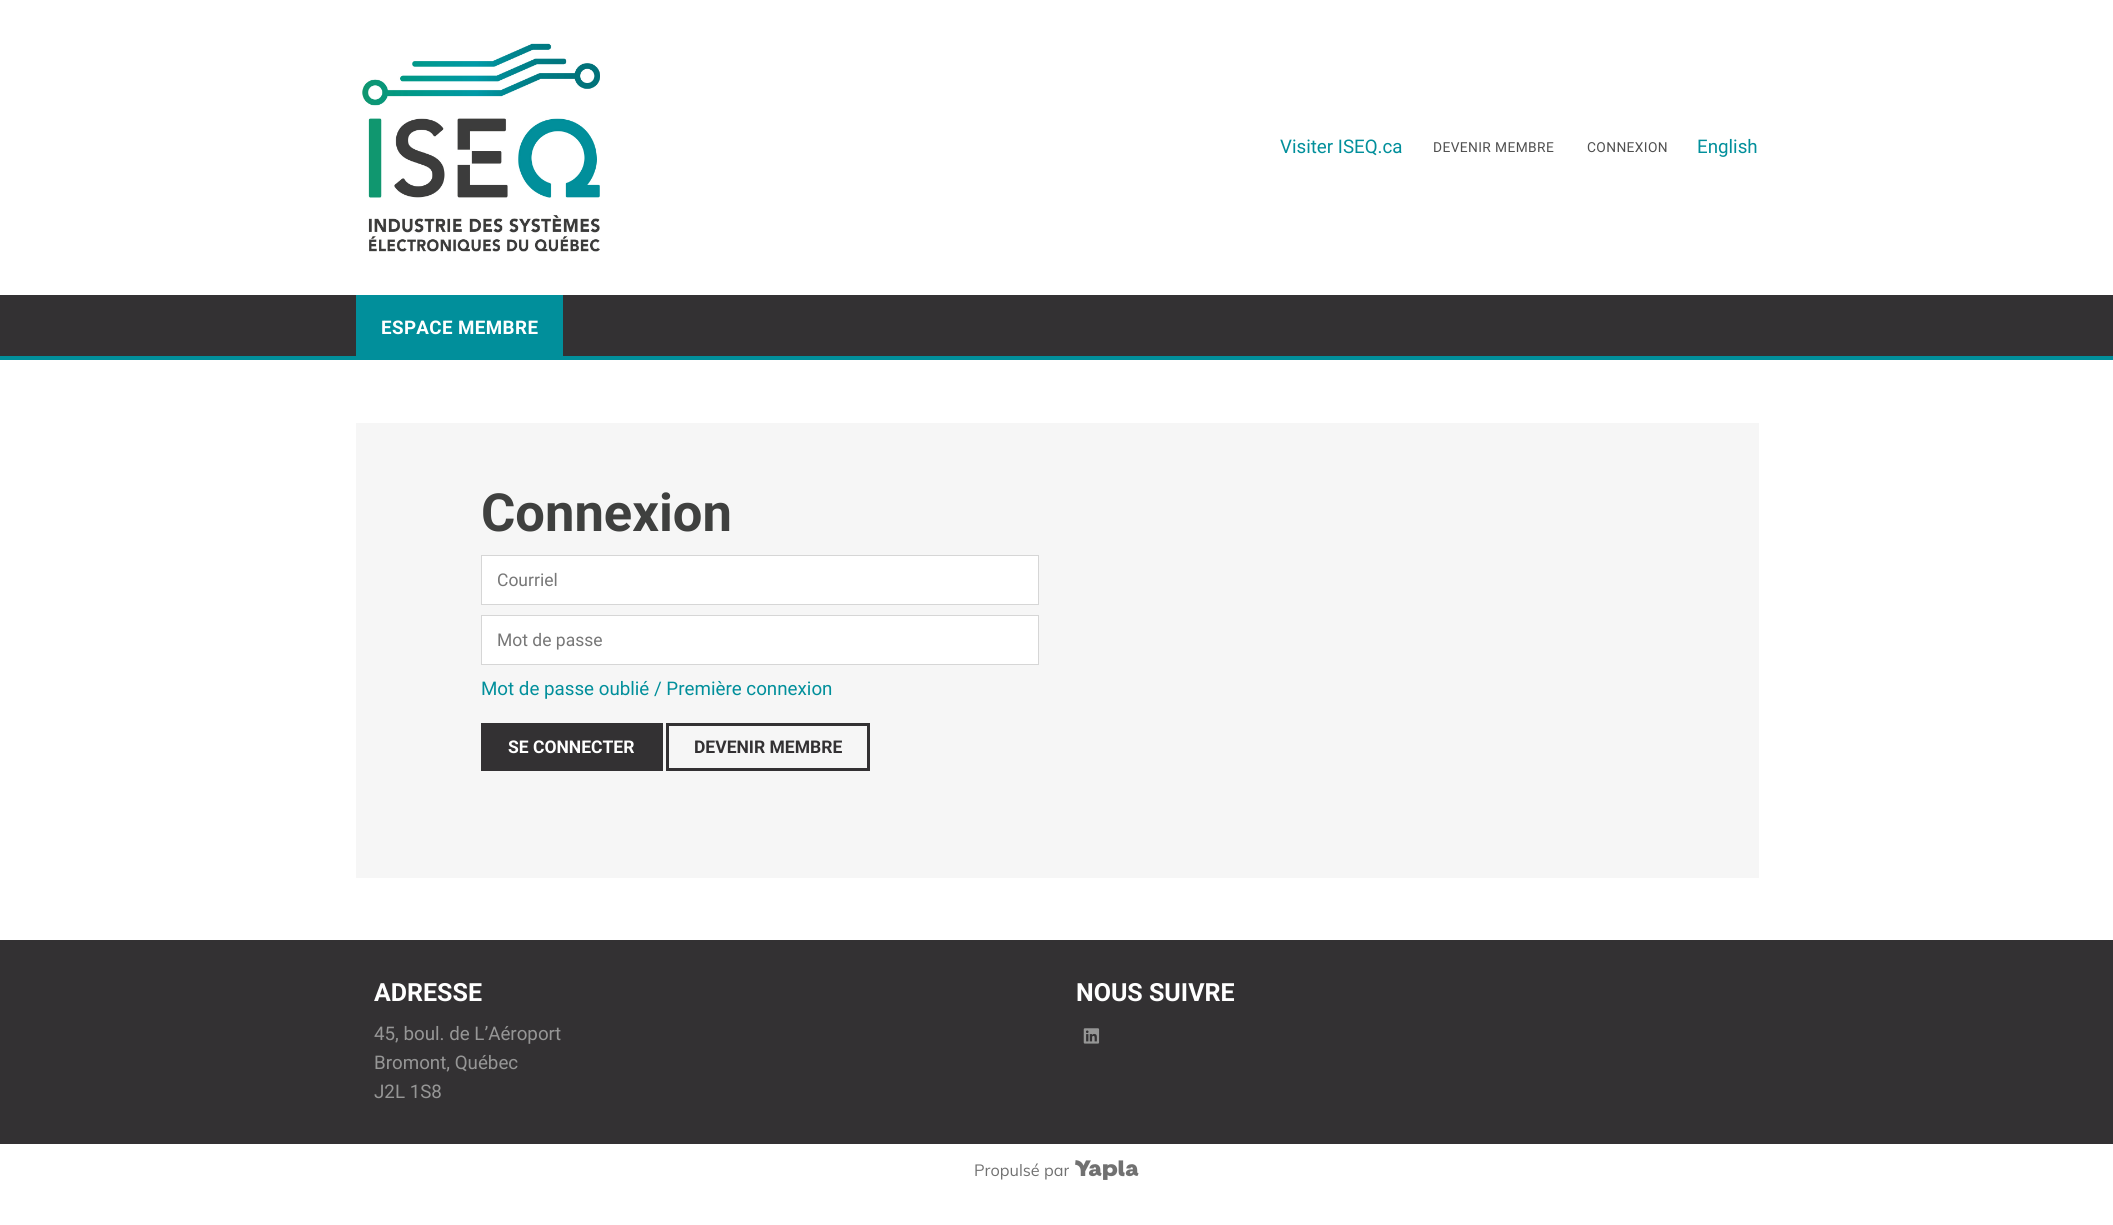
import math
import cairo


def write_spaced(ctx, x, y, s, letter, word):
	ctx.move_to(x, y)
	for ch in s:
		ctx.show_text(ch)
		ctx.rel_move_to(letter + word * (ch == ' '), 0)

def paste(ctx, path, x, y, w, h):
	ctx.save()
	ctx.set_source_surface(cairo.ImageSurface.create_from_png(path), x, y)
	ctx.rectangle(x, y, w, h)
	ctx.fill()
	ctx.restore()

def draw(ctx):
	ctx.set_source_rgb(1, 1, 1)
	ctx.paint()
	paste(ctx, 'media/1.png', 362, 43, 238, 209)
	ctx.select_font_face('Roboto')
	ctx.set_font_size(18.75)
	ctx.set_source_rgb(0.004, 0.561, 0.608)
	ctx.move_to(1280, 153)
	ctx.show_text('Visiter ISEQ.ca')
	ctx.set_font_size(13.75)
	ctx.set_source_rgb(0.31, 0.31, 0.31)
	write_spaced(ctx, 1433, 152, 'DEVENIR MEMBRE', 0.4, 0)
	write_spaced(ctx, 1587, 152, 'CONNEXION', 0.4, 0)
	ctx.set_font_size(18.75)
	ctx.set_source_rgb(0.004, 0.561, 0.608)
	ctx.move_to(1697, 153)
	ctx.show_text('English')
	ctx.set_source_rgb(0.2, 0.192, 0.2)
	ctx.rectangle(0, 295, 2113, 61)
	ctx.fill()
	ctx.set_source_rgb(0.004, 0.561, 0.608)
	ctx.rectangle(356, 295, 207, 61)
	ctx.fill()
	ctx.select_font_face('Roboto', cairo.FONT_SLANT_NORMAL, cairo.FONT_WEIGHT_BOLD)
	ctx.set_source_rgb(1, 1, 1)
	write_spaced(ctx, 381, 334, 'ESPACE MEMBRE', 0.4, 0)
	ctx.set_source_rgb(0.004, 0.561, 0.608)
	ctx.rectangle(0, 356, 2113, 4)
	ctx.fill()
	ctx.set_source_rgb(0.961, 0.961, 0.961)
	ctx.rectangle(356, 423, 1403, 455)
	ctx.fill()
	ctx.set_font_size(52.5)
	ctx.set_source_rgb(0.247, 0.251, 0.247)
	ctx.move_to(481, 531)
	ctx.show_text('Connexion')
	ctx.set_source_rgb(1, 1, 1)
	ctx.rectangle(481.5, 555.5, 557, 49)
	ctx.fill_preserve()
	ctx.set_source_rgb(0.839, 0.839, 0.839)
	ctx.set_line_width(1)
	ctx.stroke()
	ctx.select_font_face('Roboto')
	ctx.set_font_size(17.5)
	ctx.set_source_rgb(0.467, 0.467, 0.467)
	ctx.move_to(497, 586)
	ctx.show_text('Courriel')
	ctx.set_source_rgb(1, 1, 1)
	ctx.rectangle(481.5, 615.5, 557, 49)
	ctx.fill_preserve()
	ctx.set_source_rgb(0.839, 0.839, 0.839)
	ctx.stroke()
	ctx.set_source_rgb(0.467, 0.467, 0.467)
	ctx.move_to(497, 646)
	ctx.show_text('Mot de passe')
	ctx.set_font_size(18.75)
	ctx.set_source_rgb(0.004, 0.561, 0.608)
	ctx.move_to(481, 695)
	ctx.show_text('Mot de passe oublié / Première connexion')
	ctx.set_source_rgb(0.2, 0.192, 0.2)
	ctx.rectangle(481, 723, 182, 48)
	ctx.fill()
	ctx.select_font_face('Roboto', cairo.FONT_SLANT_NORMAL, cairo.FONT_WEIGHT_BOLD)
	ctx.set_font_size(17.5)
	ctx.set_source_rgb(1, 1, 1)
	ctx.move_to(508, 753)
	ctx.show_text('SE CONNECTER')
	ctx.rectangle(667.5, 724.5, 201, 45)
	ctx.set_source_rgb(0.2, 0.192, 0.2)
	ctx.set_line_width(3)
	ctx.stroke()
	ctx.move_to(694, 753)
	ctx.show_text('DEVENIR MEMBRE')
	ctx.rectangle(0, 940, 2113, 204)
	ctx.fill()
	ctx.set_font_size(25)
	ctx.set_source_rgb(1, 1, 1)
	ctx.move_to(374, 1001)
	ctx.show_text('ADRESSE')
	ctx.select_font_face('Roboto')
	ctx.set_font_size(18.75)
	ctx.set_source_rgb(0.588, 0.588, 0.588)
	for x, y, s in [
		(374, 1040, '45, boul. de L’Aéroport'),
		(374, 1069, 'Bromont, Québec'),
		(374, 1098, 'J2L 1S8'),
	]:
		ctx.move_to(x, y)
		ctx.show_text(s)
	ctx.select_font_face('Roboto', cairo.FONT_SLANT_NORMAL, cairo.FONT_WEIGHT_BOLD)
	ctx.set_font_size(25)
	ctx.set_source_rgb(1, 1, 1)
	ctx.move_to(1076, 1001)
	ctx.show_text('NOUS SUIVRE')
	paste(ctx, 'media/2.png', 1083, 1028, 17, 16)
	ctx.select_font_face('Muli')
	ctx.set_font_size(16.25)
	ctx.set_source_rgb(0.443, 0.443, 0.443)
	ctx.move_to(974, 1176)
	ctx.show_text('Propulsé par')
	paste(ctx, 'media/3.png', 1075, 1160, 64, 20)


surface = cairo.ImageSurface(cairo.FORMAT_RGB24, 2113, 1225)
ctx = cairo.Context(surface)
options = cairo.FontOptions()
options.set_hint_metrics(cairo.HINT_METRICS_OFF)
options.set_hint_style(cairo.HINT_STYLE_NONE)
ctx.set_font_options(options)
ctx.set_miter_limit(4)
draw(ctx)
surface.write_to_png('image.png')
